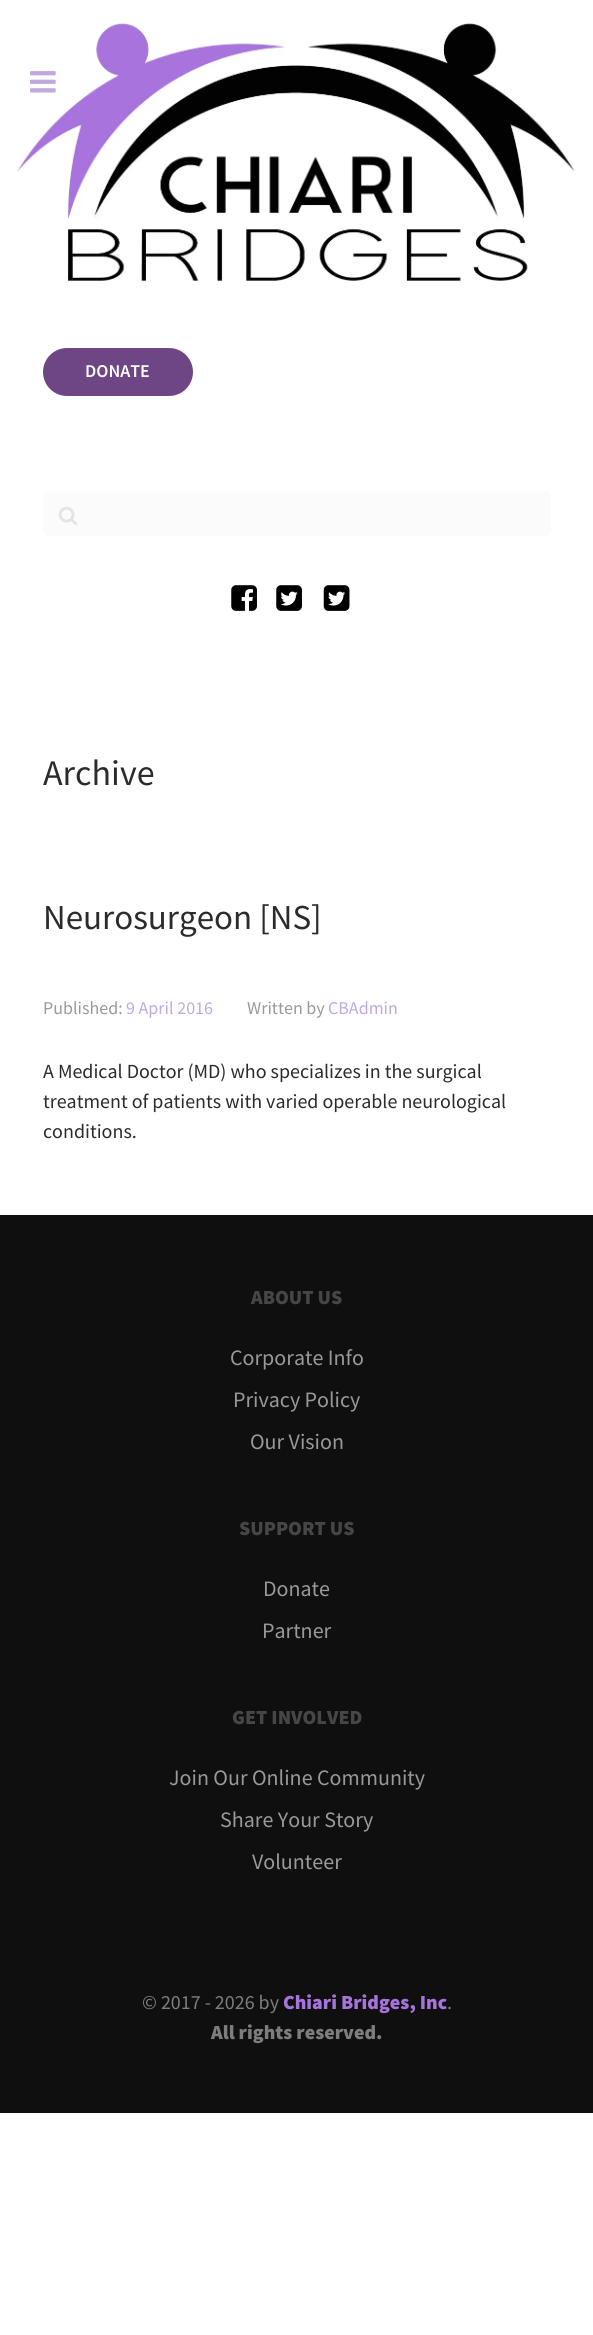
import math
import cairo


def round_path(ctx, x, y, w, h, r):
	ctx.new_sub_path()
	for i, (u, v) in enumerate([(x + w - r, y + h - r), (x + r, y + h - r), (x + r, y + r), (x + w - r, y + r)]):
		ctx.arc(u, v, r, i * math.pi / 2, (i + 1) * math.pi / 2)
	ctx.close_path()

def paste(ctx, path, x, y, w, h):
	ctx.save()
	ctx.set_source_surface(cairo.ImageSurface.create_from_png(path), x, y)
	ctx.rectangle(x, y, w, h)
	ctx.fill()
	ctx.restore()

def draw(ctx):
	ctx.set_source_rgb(1, 1, 1)
	ctx.paint()
	paste(ctx, 'media/2.png', 17, 22, 558, 259)
	paste(ctx, 'media/1.png', 30, 71, 26, 22)
	ctx.set_source_rgb(0.435, 0.275, 0.522)
	round_path(ctx, 43, 348, 150, 48, 24)
	ctx.fill()
	ctx.select_font_face('Source Sans Pro SemiBold')
	ctx.set_font_size(18)
	ctx.set_source_rgb(1, 1, 1)
	ctx.move_to(85, 377)
	ctx.show_text('DONATE')
	ctx.set_source_rgb(0.984, 0.984, 0.984)
	round_path(ctx, 43, 491, 508, 45, 6)
	ctx.fill()
	paste(ctx, 'media/3.png', 58, 506, 20, 20)
	paste(ctx, 'media/4.png', 231, 585, 26, 26)
	paste(ctx, 'media/5.png', 276, 585, 26, 26)
	paste(ctx, 'media/6.png', 323, 585, 27, 26)
	ctx.select_font_face('Source Sans Pro')
	ctx.set_font_size(36)
	ctx.set_source_rgb(0.169, 0.169, 0.169)
	ctx.move_to(43, 785)
	ctx.show_text('Archive')
	ctx.set_font_size(35)
	ctx.move_to(43, 929)
	ctx.show_text('Neurosurgeon [NS]')
	ctx.set_font_size(18)
	ctx.set_source_rgb(0.6, 0.6, 0.6)
	ctx.move_to(43, 1014)
	ctx.show_text('Published:')
	ctx.set_source_rgb(0.757, 0.663, 0.871)
	ctx.move_to(126, 1014)
	ctx.show_text('9 April 2016')
	ctx.set_source_rgb(0.6, 0.6, 0.6)
	ctx.move_to(247, 1014)
	ctx.show_text('Written by')
	ctx.set_source_rgb(0.757, 0.663, 0.871)
	ctx.move_to(328, 1014)
	ctx.show_text('CBAdmin')
	ctx.set_font_size(20)
	ctx.set_source_rgb(0.169, 0.169, 0.169)
	for x, y, s in [
		(43, 1078, 'A Medical Doctor (MD) who specializes in the surgical'),
		(43, 1108, 'treatment of patients with varied operable neurological'),
		(43, 1138, 'conditions.'),
	]:
		ctx.move_to(x, y)
		ctx.show_text(s)
	ctx.set_source_rgb(0.059, 0.059, 0.059)
	ctx.rectangle(0, 1215, 593, 898)
	ctx.fill()
	ctx.select_font_face('Source Sans Pro Black')
	ctx.set_source_rgb(0.275, 0.275, 0.275)
	ctx.move_to(251, 1304)
	ctx.show_text('ABOUT US')
	ctx.select_font_face('Source Sans Pro')
	ctx.set_font_size(22)
	ctx.set_source_rgb(0.6, 0.6, 0.6)
	for x, y, s in [
		(230, 1365, 'Corporate Info'),
		(233, 1407, 'Privacy Policy'),
		(250, 1449, 'Our Vision'),
	]:
		ctx.move_to(x, y)
		ctx.show_text(s)
	ctx.select_font_face('Source Sans Pro Black')
	ctx.set_font_size(20)
	ctx.set_source_rgb(0.275, 0.275, 0.275)
	ctx.move_to(239, 1535)
	ctx.show_text('SUPPORT US')
	ctx.select_font_face('Source Sans Pro')
	ctx.set_font_size(22)
	ctx.set_source_rgb(0.6, 0.6, 0.6)
	ctx.move_to(263, 1596)
	ctx.show_text('Donate')
	ctx.move_to(262, 1638)
	ctx.show_text('Partner')
	ctx.select_font_face('Source Sans Pro Black')
	ctx.set_font_size(20)
	ctx.set_source_rgb(0.275, 0.275, 0.275)
	ctx.move_to(232, 1724)
	ctx.show_text('GET INVOLVED')
	ctx.select_font_face('Source Sans Pro')
	ctx.set_font_size(22)
	ctx.set_source_rgb(0.6, 0.6, 0.6)
	for x, y, s in [
		(169, 1785, 'Join Our Online Community'),
		(220, 1827, 'Share Your Story'),
		(252, 1869, 'Volunteer'),
	]:
		ctx.move_to(x, y)
		ctx.show_text(s)
	ctx.set_font_size(20)
	ctx.set_source_rgb(0.49, 0.49, 0.49)
	ctx.move_to(142, 2009)
	ctx.show_text('© 2017 - 2026 by')
	ctx.select_font_face('Source Sans Pro Black')
	ctx.set_source_rgb(0.655, 0.451, 0.867)
	ctx.move_to(283, 2009)
	ctx.show_text('Chiari Bridges, Inc')
	ctx.select_font_face('Source Sans Pro')
	ctx.set_source_rgb(0.49, 0.49, 0.49)
	ctx.move_to(447, 2009)
	ctx.show_text('.')
	ctx.select_font_face('Source Sans Pro Black')
	ctx.move_to(211, 2039)
	ctx.show_text('All rights reserved.')


surface = cairo.ImageSurface(cairo.FORMAT_RGB24, 593, 2335)
ctx = cairo.Context(surface)
options = cairo.FontOptions()
options.set_hint_metrics(cairo.HINT_METRICS_OFF)
options.set_hint_style(cairo.HINT_STYLE_NONE)
ctx.set_font_options(options)
ctx.set_miter_limit(4)
draw(ctx)
surface.write_to_png('image.png')
